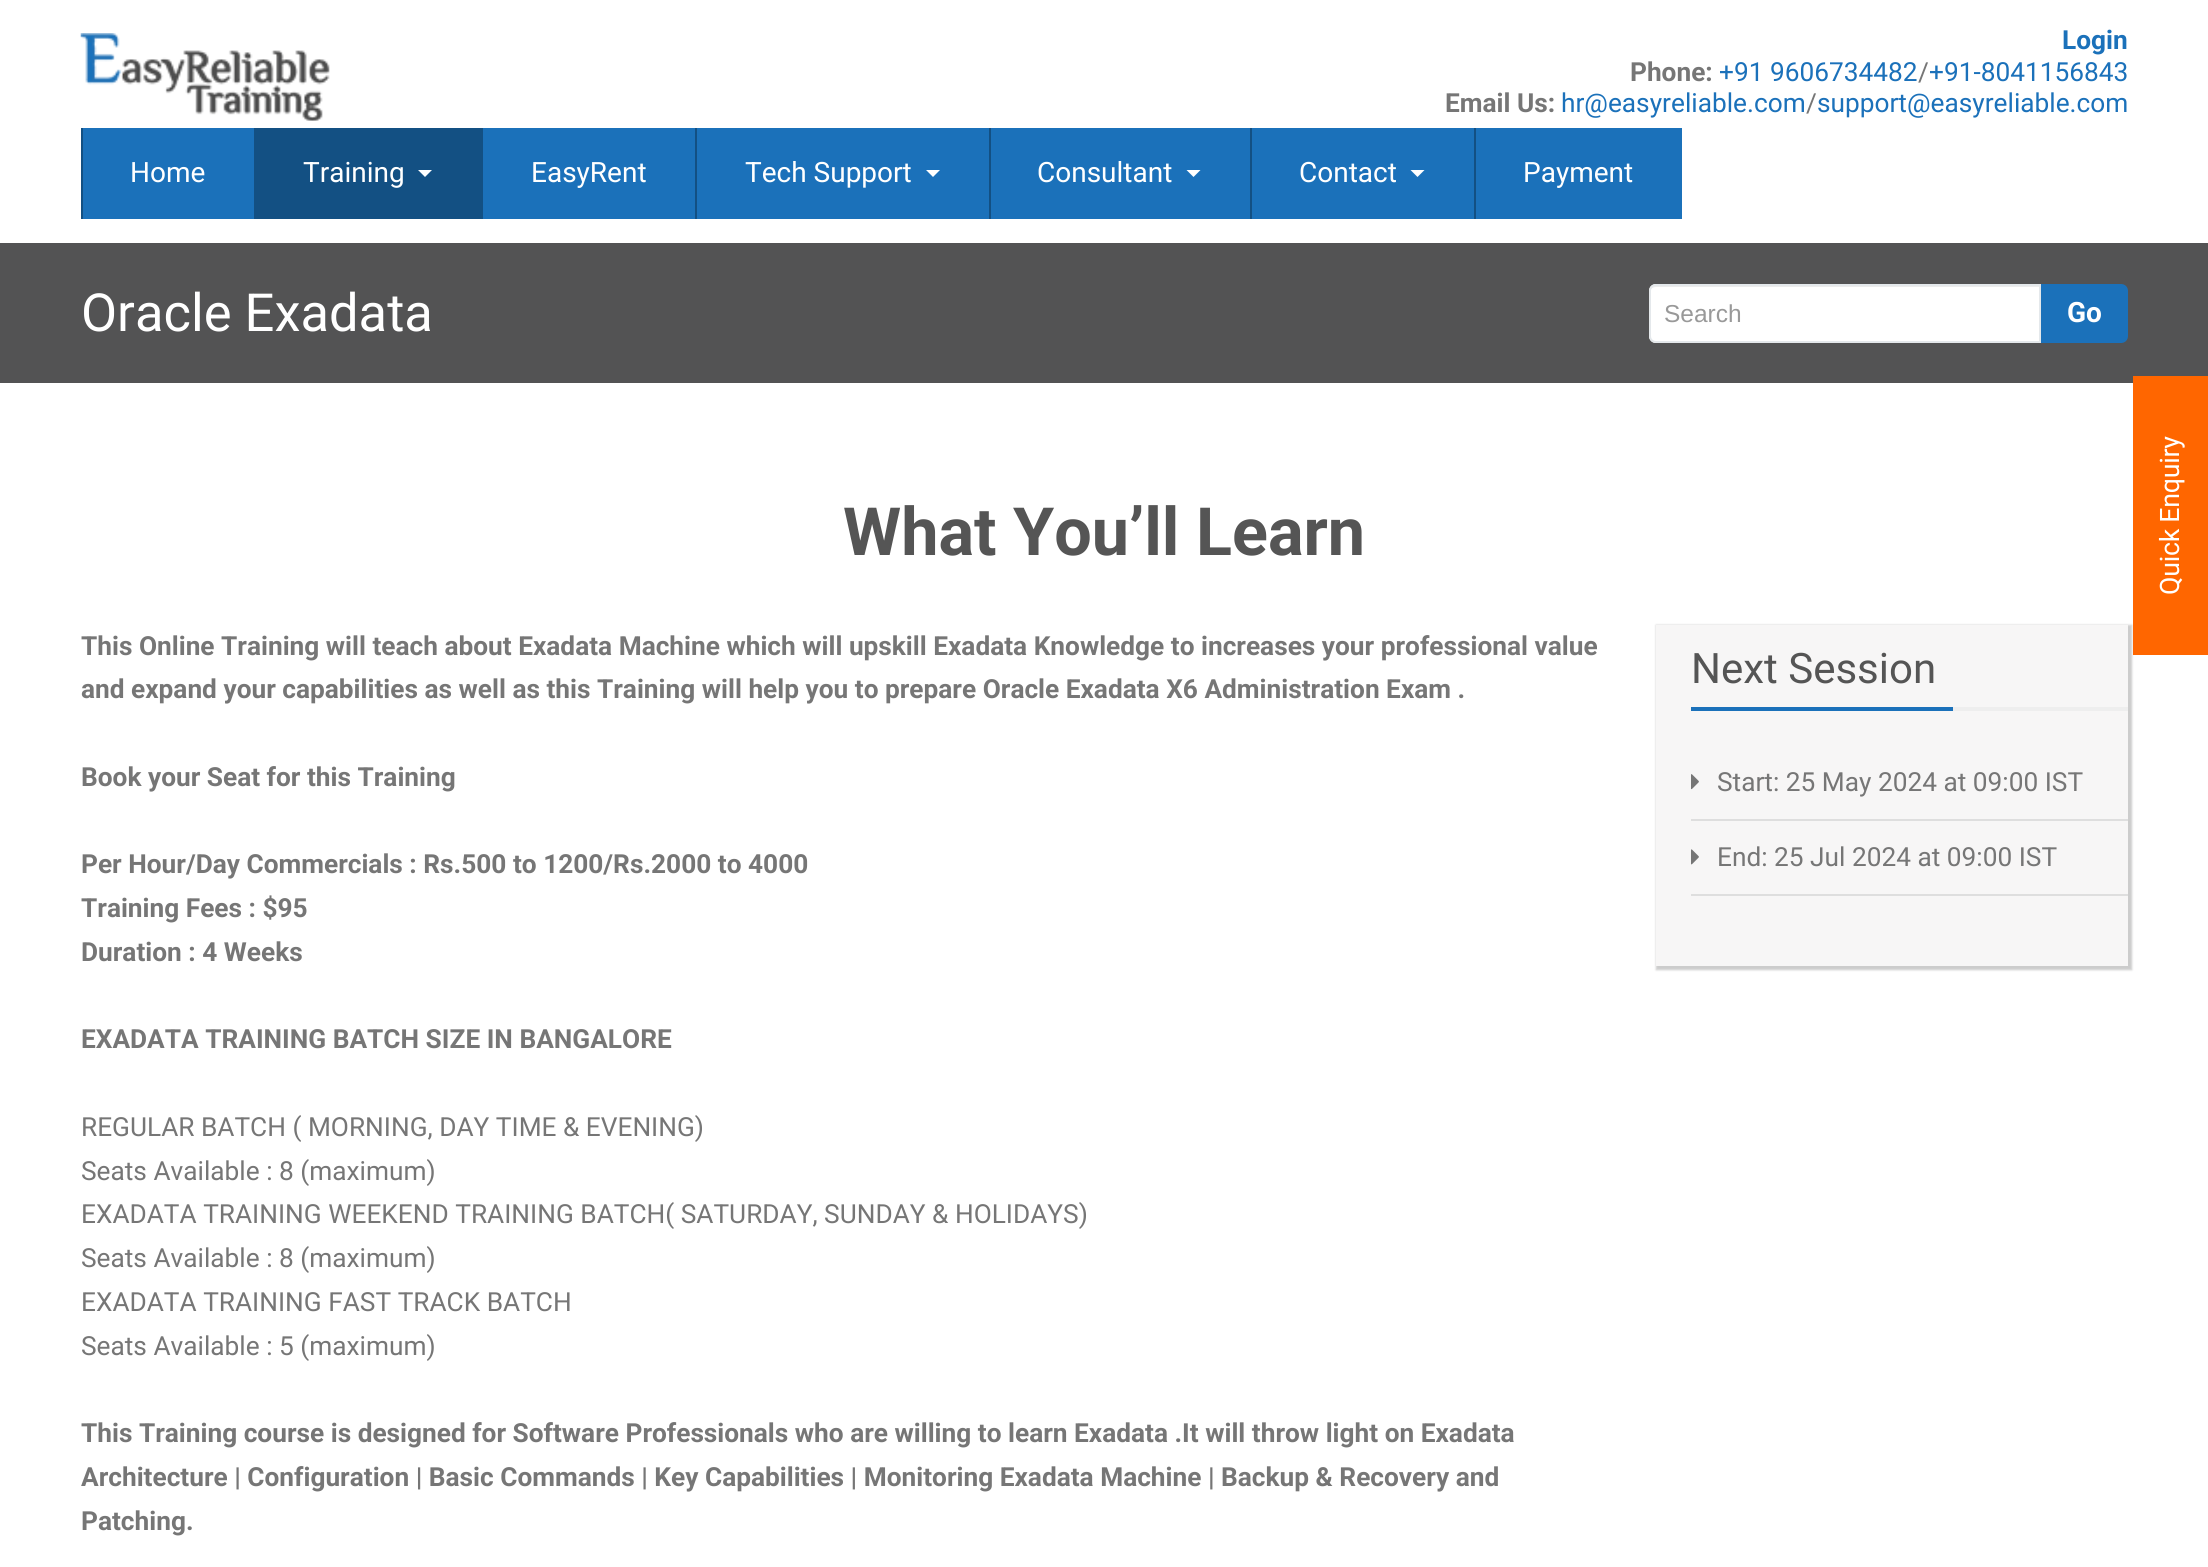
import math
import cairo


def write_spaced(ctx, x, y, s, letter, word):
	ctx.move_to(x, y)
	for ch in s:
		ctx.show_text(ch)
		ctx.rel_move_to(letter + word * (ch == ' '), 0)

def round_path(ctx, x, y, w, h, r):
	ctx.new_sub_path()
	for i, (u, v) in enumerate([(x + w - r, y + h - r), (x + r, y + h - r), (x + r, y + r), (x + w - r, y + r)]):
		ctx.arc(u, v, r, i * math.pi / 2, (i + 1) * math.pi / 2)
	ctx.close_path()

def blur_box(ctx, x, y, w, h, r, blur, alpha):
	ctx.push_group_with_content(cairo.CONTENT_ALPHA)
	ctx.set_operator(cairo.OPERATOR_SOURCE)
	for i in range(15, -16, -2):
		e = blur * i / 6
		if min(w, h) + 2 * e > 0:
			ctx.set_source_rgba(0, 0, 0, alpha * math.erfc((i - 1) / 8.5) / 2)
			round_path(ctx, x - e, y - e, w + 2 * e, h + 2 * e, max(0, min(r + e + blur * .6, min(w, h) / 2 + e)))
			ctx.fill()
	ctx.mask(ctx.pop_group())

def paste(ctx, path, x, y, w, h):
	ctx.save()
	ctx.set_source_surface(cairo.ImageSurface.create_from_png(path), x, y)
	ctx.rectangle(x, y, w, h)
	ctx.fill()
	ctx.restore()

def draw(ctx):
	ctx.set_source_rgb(1, 1, 1)
	ctx.paint()
	paste(ctx, 'media/1.png', 80, 33, 250, 88)
	ctx.select_font_face('Roboto', cairo.FONT_SLANT_NORMAL, cairo.FONT_WEIGHT_BOLD)
	ctx.set_font_size(26.25)
	ctx.set_source_rgb(0.106, 0.443, 0.729)
	ctx.move_to(2062, 49)
	ctx.show_text('Login')
	ctx.set_source_rgb(0.463, 0.463, 0.463)
	ctx.move_to(1630, 81)
	ctx.show_text('Phone:')
	ctx.select_font_face('Roboto')
	ctx.set_source_rgb(0.106, 0.443, 0.729)
	ctx.move_to(1719, 81)
	ctx.show_text('+91 9606734482')
	ctx.set_source_rgb(0.463, 0.463, 0.463)
	ctx.move_to(1918, 81)
	ctx.show_text('/')
	ctx.set_source_rgb(0.106, 0.443, 0.729)
	ctx.move_to(1929, 81)
	ctx.show_text('+91-8041156843')
	ctx.select_font_face('Roboto', cairo.FONT_SLANT_NORMAL, cairo.FONT_WEIGHT_BOLD)
	ctx.set_source_rgb(0.463, 0.463, 0.463)
	ctx.move_to(1445, 112)
	ctx.show_text('Email Us:')
	ctx.select_font_face('Roboto')
	ctx.set_source_rgb(0.106, 0.443, 0.729)
	ctx.move_to(1561, 112)
	ctx.show_text('hr@easyreliable.com')
	ctx.set_source_rgb(0.463, 0.463, 0.463)
	ctx.move_to(1806, 112)
	ctx.show_text('/')
	ctx.set_source_rgb(0.106, 0.443, 0.729)
	ctx.move_to(1817, 112)
	ctx.show_text('support@easyreliable.com')
	ctx.rectangle(83, 128, 171, 91)
	ctx.fill()
	ctx.set_source_rgb(0.075, 0.314, 0.514)
	ctx.rectangle(81, 128, 2, 91)
	ctx.fill()
	ctx.set_font_size(28)
	ctx.set_source_rgb(1, 1, 1)
	ctx.move_to(130, 182)
	ctx.show_text('Home')
	ctx.set_source_rgb(0.075, 0.314, 0.514)
	ctx.rectangle(254, 128, 229, 91)
	ctx.fill()
	ctx.set_source_rgb(1, 1, 1)
	ctx.move_to(303, 182)
	ctx.show_text('Training')
	ctx.new_path()
	ctx.move_to(418, 170)
	ctx.line_to(432, 170)
	ctx.line_to(425, 177)
	ctx.close_path()
	ctx.fill()
	ctx.set_source_rgb(0.106, 0.443, 0.729)
	ctx.rectangle(483, 128, 212, 91)
	ctx.fill()
	ctx.set_source_rgb(1, 1, 1)
	ctx.move_to(531, 182)
	ctx.show_text('EasyRent')
	ctx.set_source_rgb(0.106, 0.443, 0.729)
	ctx.rectangle(697, 128, 292, 91)
	ctx.fill()
	ctx.set_source_rgb(0.075, 0.314, 0.514)
	ctx.rectangle(695, 128, 2, 91)
	ctx.fill()
	ctx.set_source_rgb(1, 1, 1)
	ctx.move_to(745, 182)
	ctx.show_text('Tech Support')
	ctx.new_path()
	ctx.move_to(926, 170)
	ctx.line_to(940, 170)
	ctx.line_to(933, 177)
	ctx.close_path()
	ctx.fill()
	ctx.set_source_rgb(0.106, 0.443, 0.729)
	ctx.rectangle(991, 128, 259, 91)
	ctx.fill()
	ctx.set_source_rgb(0.075, 0.314, 0.514)
	ctx.rectangle(989, 128, 2, 91)
	ctx.fill()
	ctx.set_source_rgb(1, 1, 1)
	ctx.move_to(1037, 182)
	ctx.show_text('Consultant')
	ctx.new_path()
	ctx.move_to(1186.5, 170)
	ctx.line_to(1200.5, 170)
	ctx.line_to(1193.5, 177)
	ctx.close_path()
	ctx.fill()
	ctx.set_source_rgb(0.106, 0.443, 0.729)
	ctx.rectangle(1252, 128, 222, 91)
	ctx.fill()
	ctx.set_source_rgb(0.075, 0.314, 0.514)
	ctx.rectangle(1250, 128, 2, 91)
	ctx.fill()
	ctx.set_source_rgb(1, 1, 1)
	ctx.move_to(1299, 182)
	ctx.show_text('Contact')
	ctx.new_path()
	ctx.move_to(1410.5, 170)
	ctx.line_to(1424.5, 170)
	ctx.line_to(1417.5, 177)
	ctx.close_path()
	ctx.fill()
	ctx.set_source_rgb(0.106, 0.443, 0.729)
	ctx.rectangle(1476, 128, 206, 91)
	ctx.fill()
	ctx.set_source_rgb(0.075, 0.314, 0.514)
	ctx.rectangle(1474, 128, 2, 91)
	ctx.fill()
	ctx.set_source_rgb(1, 1, 1)
	ctx.move_to(1523, 182)
	ctx.show_text('Payment')
	ctx.set_source_rgb(0.325, 0.325, 0.329)
	ctx.rectangle(0, 243, 2208, 140)
	ctx.fill()
	ctx.set_font_size(52.5)
	ctx.set_source_rgb(1, 1, 1)
	ctx.move_to(81, 331)
	ctx.show_text('Oracle Exadata')
	ctx.new_path()
	ctx.move_to(1656, 284)
	ctx.line_to(2041, 284)
	ctx.line_to(2041, 343)
	ctx.line_to(1656, 343)
	ctx.curve_to(1652, 343, 1649, 340, 1649, 336)
	ctx.line_to(1649, 291)
	ctx.curve_to(1649, 287, 1652, 284, 1656, 284)
	ctx.close_path()
	ctx.fill()
	ctx.set_source_rgb(0.925, 0.925, 0.925)
	ctx.new_path()
	ctx.move_to(1656, 287)
	ctx.line_to(2039, 287)
	ctx.line_to(2039, 285)
	ctx.line_to(1655, 285)
	ctx.curve_to(1652, 285, 1650, 287, 1650, 290)
	ctx.line_to(1650, 292)
	ctx.curve_to(1650, 289, 1653, 287, 1656, 287)
	ctx.close_path()
	ctx.fill()
	ctx.new_path()
	ctx.move_to(1656, 285)
	ctx.line_to(2040, 285)
	ctx.line_to(2040, 342)
	ctx.line_to(1656, 342)
	ctx.curve_to(1652.5, 342, 1650, 339.5, 1650, 336)
	ctx.line_to(1650, 291)
	ctx.curve_to(1650, 287.5, 1652.5, 285, 1656, 285)
	ctx.close_path()
	ctx.set_source_rgb(0.894, 0.91, 0.918)
	ctx.stroke()
	ctx.select_font_face('Liberation Sans')
	ctx.set_font_size(24.5)
	ctx.set_source_rgb(0.6, 0.6, 0.6)
	ctx.move_to(1664, 322)
	ctx.show_text('Search')
	ctx.set_source_rgb(0.106, 0.443, 0.729)
	ctx.new_path()
	ctx.move_to(2041, 284)
	ctx.line_to(2121, 284)
	ctx.curve_to(2125, 284, 2128, 287, 2128, 291)
	ctx.line_to(2128, 336)
	ctx.curve_to(2128, 340, 2125, 343, 2121, 343)
	ctx.line_to(2041, 343)
	ctx.close_path()
	ctx.fill()
	ctx.select_font_face('Roboto', cairo.FONT_SLANT_NORMAL, cairo.FONT_WEIGHT_BOLD)
	ctx.set_font_size(28)
	ctx.set_source_rgb(1, 1, 1)
	ctx.move_to(2067, 322)
	ctx.show_text('Go')
	ctx.set_font_size(66.5)
	ctx.set_source_rgb(0.333, 0.333, 0.333)
	ctx.move_to(843, 555)
	ctx.show_text('What You’ll Learn')
	ctx.set_font_size(26.25)
	ctx.set_source_rgb(0.463, 0.463, 0.463)
	for x, y, s in [
		(81, 655, 'This Online Training will teach about Exadata Machine which will upskill Exadata Knowledge to increases your professional value'),
		(81, 698, 'and expand your capabilities as well as this Training will help you to prepare Oracle Exadata X6 Administration Exam .'),
		(81, 786, 'Book your Seat for this Training'),
		(81, 873, 'Per Hour/Day Commercials : Rs.500 to 1200/Rs.2000 to 4000'),
		(81, 917, 'Training Fees : $95'),
		(81, 961, 'Duration : 4 Weeks'),
		(81, 1048, 'EXADATA TRAINING BATCH SIZE IN BANGALORE'),
	]:
		ctx.move_to(x, y)
		ctx.show_text(s)
	ctx.select_font_face('Roboto')
	for x, y, s in [
		(81, 1136, 'REGULAR BATCH ( MORNING, DAY TIME & EVENING)'),
		(81, 1180, 'Seats Available : 8 (maximum)'),
		(81, 1223, 'EXADATA TRAINING WEEKEND TRAINING BATCH( SATURDAY, SUNDAY & HOLIDAYS)'),
		(81, 1267, 'Seats Available : 8 (maximum)'),
		(81, 1311, 'EXADATA TRAINING FAST TRACK BATCH'),
		(81, 1355, 'Seats Available : 5 (maximum)'),
	]:
		ctx.move_to(x, y)
		ctx.show_text(s)
	ctx.select_font_face('Roboto', cairo.FONT_SLANT_NORMAL, cairo.FONT_WEIGHT_BOLD)
	for x, y, s in [
		(81, 1442, 'This Training course is designed for Software Professionals who are willing to learn Exadata .It will throw light on Exadata'),
		(81, 1486, 'Architecture | Configuration | Basic Commands | Key Capabilities | Monitoring Exadata Machine | Backup & Recovery and'),
		(81, 1530, 'Patching.'),
	]:
		ctx.move_to(x, y)
		ctx.show_text(s)
	ctx.set_source_rgb(0.8, 0.8, 0.8)
	blur_box(ctx, 1656, 625, 476, 345, 0, 1, 1)
	ctx.set_source_rgb(0.965, 0.961, 0.961)
	ctx.rectangle(1656, 625, 472, 341)
	ctx.fill()
	ctx.set_source_rgb(0.933, 0.933, 0.933)
	ctx.rectangle(1953, 707, 175, 4)
	ctx.fill()
	ctx.set_source_rgb(0.106, 0.443, 0.729)
	ctx.rectangle(1691, 707, 262, 4)
	ctx.fill()
	ctx.select_font_face('Roboto')
	ctx.set_font_size(42)
	ctx.set_source_rgb(0.333, 0.333, 0.333)
	ctx.move_to(1691, 683)
	ctx.show_text('Next Session')
	ctx.set_source_rgb(0.871, 0.871, 0.871)
	ctx.rectangle(1691, 819, 437, 2)
	ctx.fill()
	paste(ctx, 'media/2.png', 1691, 774, 8, 16)
	ctx.set_font_size(26.25)
	ctx.set_source_rgb(0.463, 0.463, 0.463)
	ctx.move_to(1717, 791)
	ctx.show_text('Start: 25 May 2024 at 09:00 IST')
	ctx.set_source_rgb(0.871, 0.871, 0.871)
	ctx.rectangle(1691, 894, 437, 2)
	ctx.fill()
	paste(ctx, 'media/3.png', 1691, 849, 8, 16)
	ctx.set_source_rgb(0.463, 0.463, 0.463)
	ctx.move_to(1717, 866)
	ctx.show_text('End: 25 Jul 2024 at 09:00 IST')
	ctx.set_source_rgb(1, 0.4, 0)
	ctx.rectangle(2133, 376, 75, 279)
	ctx.fill()
	ctx.set_font_size(26.75)
	ctx.set_source_rgb(1, 1, 1)
	ctx.save()
	ctx.translate(2179, 595)
	ctx.rotate(-90 * math.pi / 180)
	write_spaced(ctx, 0, 0, 'Quick Enquiry', -0.25, 0)
	ctx.restore()


surface = cairo.ImageSurface(cairo.FORMAT_RGB24, 2208, 1567)
ctx = cairo.Context(surface)
options = cairo.FontOptions()
options.set_hint_metrics(cairo.HINT_METRICS_OFF)
options.set_hint_style(cairo.HINT_STYLE_NONE)
ctx.set_font_options(options)
ctx.set_miter_limit(4)
draw(ctx)
surface.write_to_png('image.png')
